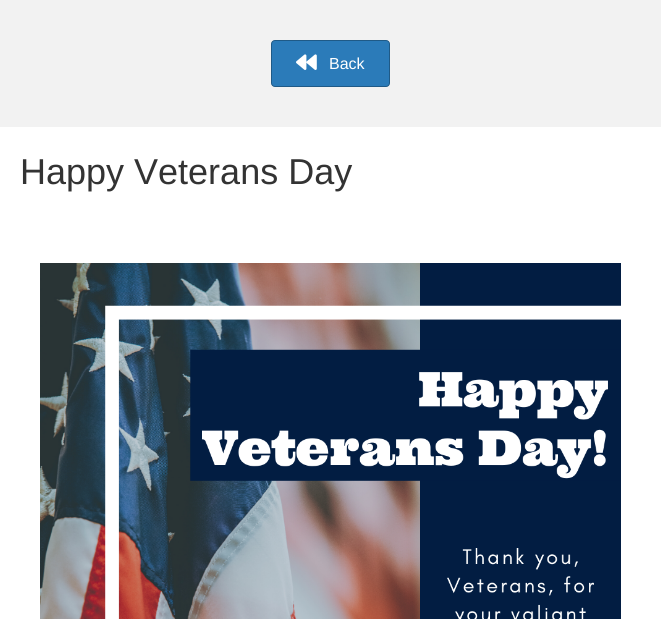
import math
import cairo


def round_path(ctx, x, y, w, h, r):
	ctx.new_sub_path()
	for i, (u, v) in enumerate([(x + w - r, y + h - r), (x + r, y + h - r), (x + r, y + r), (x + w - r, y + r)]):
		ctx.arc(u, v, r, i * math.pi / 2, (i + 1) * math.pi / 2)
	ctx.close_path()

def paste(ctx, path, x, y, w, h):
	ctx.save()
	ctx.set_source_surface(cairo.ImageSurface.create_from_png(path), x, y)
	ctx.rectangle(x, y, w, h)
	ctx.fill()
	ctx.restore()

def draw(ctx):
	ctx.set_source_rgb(0.949, 0.949, 0.949)
	ctx.paint()
	ctx.set_source_rgb(0.169, 0.482, 0.725)
	round_path(ctx, 271.5, 40.5, 118, 46, 3.5)
	ctx.fill_preserve()
	ctx.set_source_rgb(0.122, 0.353, 0.529)
	ctx.set_line_width(1)
	ctx.stroke()
	paste(ctx, 'media/1.png', 296, 54, 21, 16)
	ctx.select_font_face('Liberation Sans')
	ctx.set_font_size(16)
	ctx.set_source_rgb(1, 1, 1)
	ctx.move_to(329, 69)
	ctx.show_text('Back')
	ctx.rectangle(0, 127, 661, 492)
	ctx.fill()
	ctx.set_font_size(36)
	ctx.set_source_rgb(0.2, 0.2, 0.2)
	ctx.move_to(20, 184)
	ctx.show_text('Happy Veterans Day')
	paste(ctx, 'media/2.png', 40, 263, 581, 356)


surface = cairo.ImageSurface(cairo.FORMAT_RGB24, 661, 619)
ctx = cairo.Context(surface)
options = cairo.FontOptions()
options.set_hint_metrics(cairo.HINT_METRICS_OFF)
options.set_hint_style(cairo.HINT_STYLE_NONE)
ctx.set_font_options(options)
ctx.set_miter_limit(4)
draw(ctx)
surface.write_to_png('image.png')
